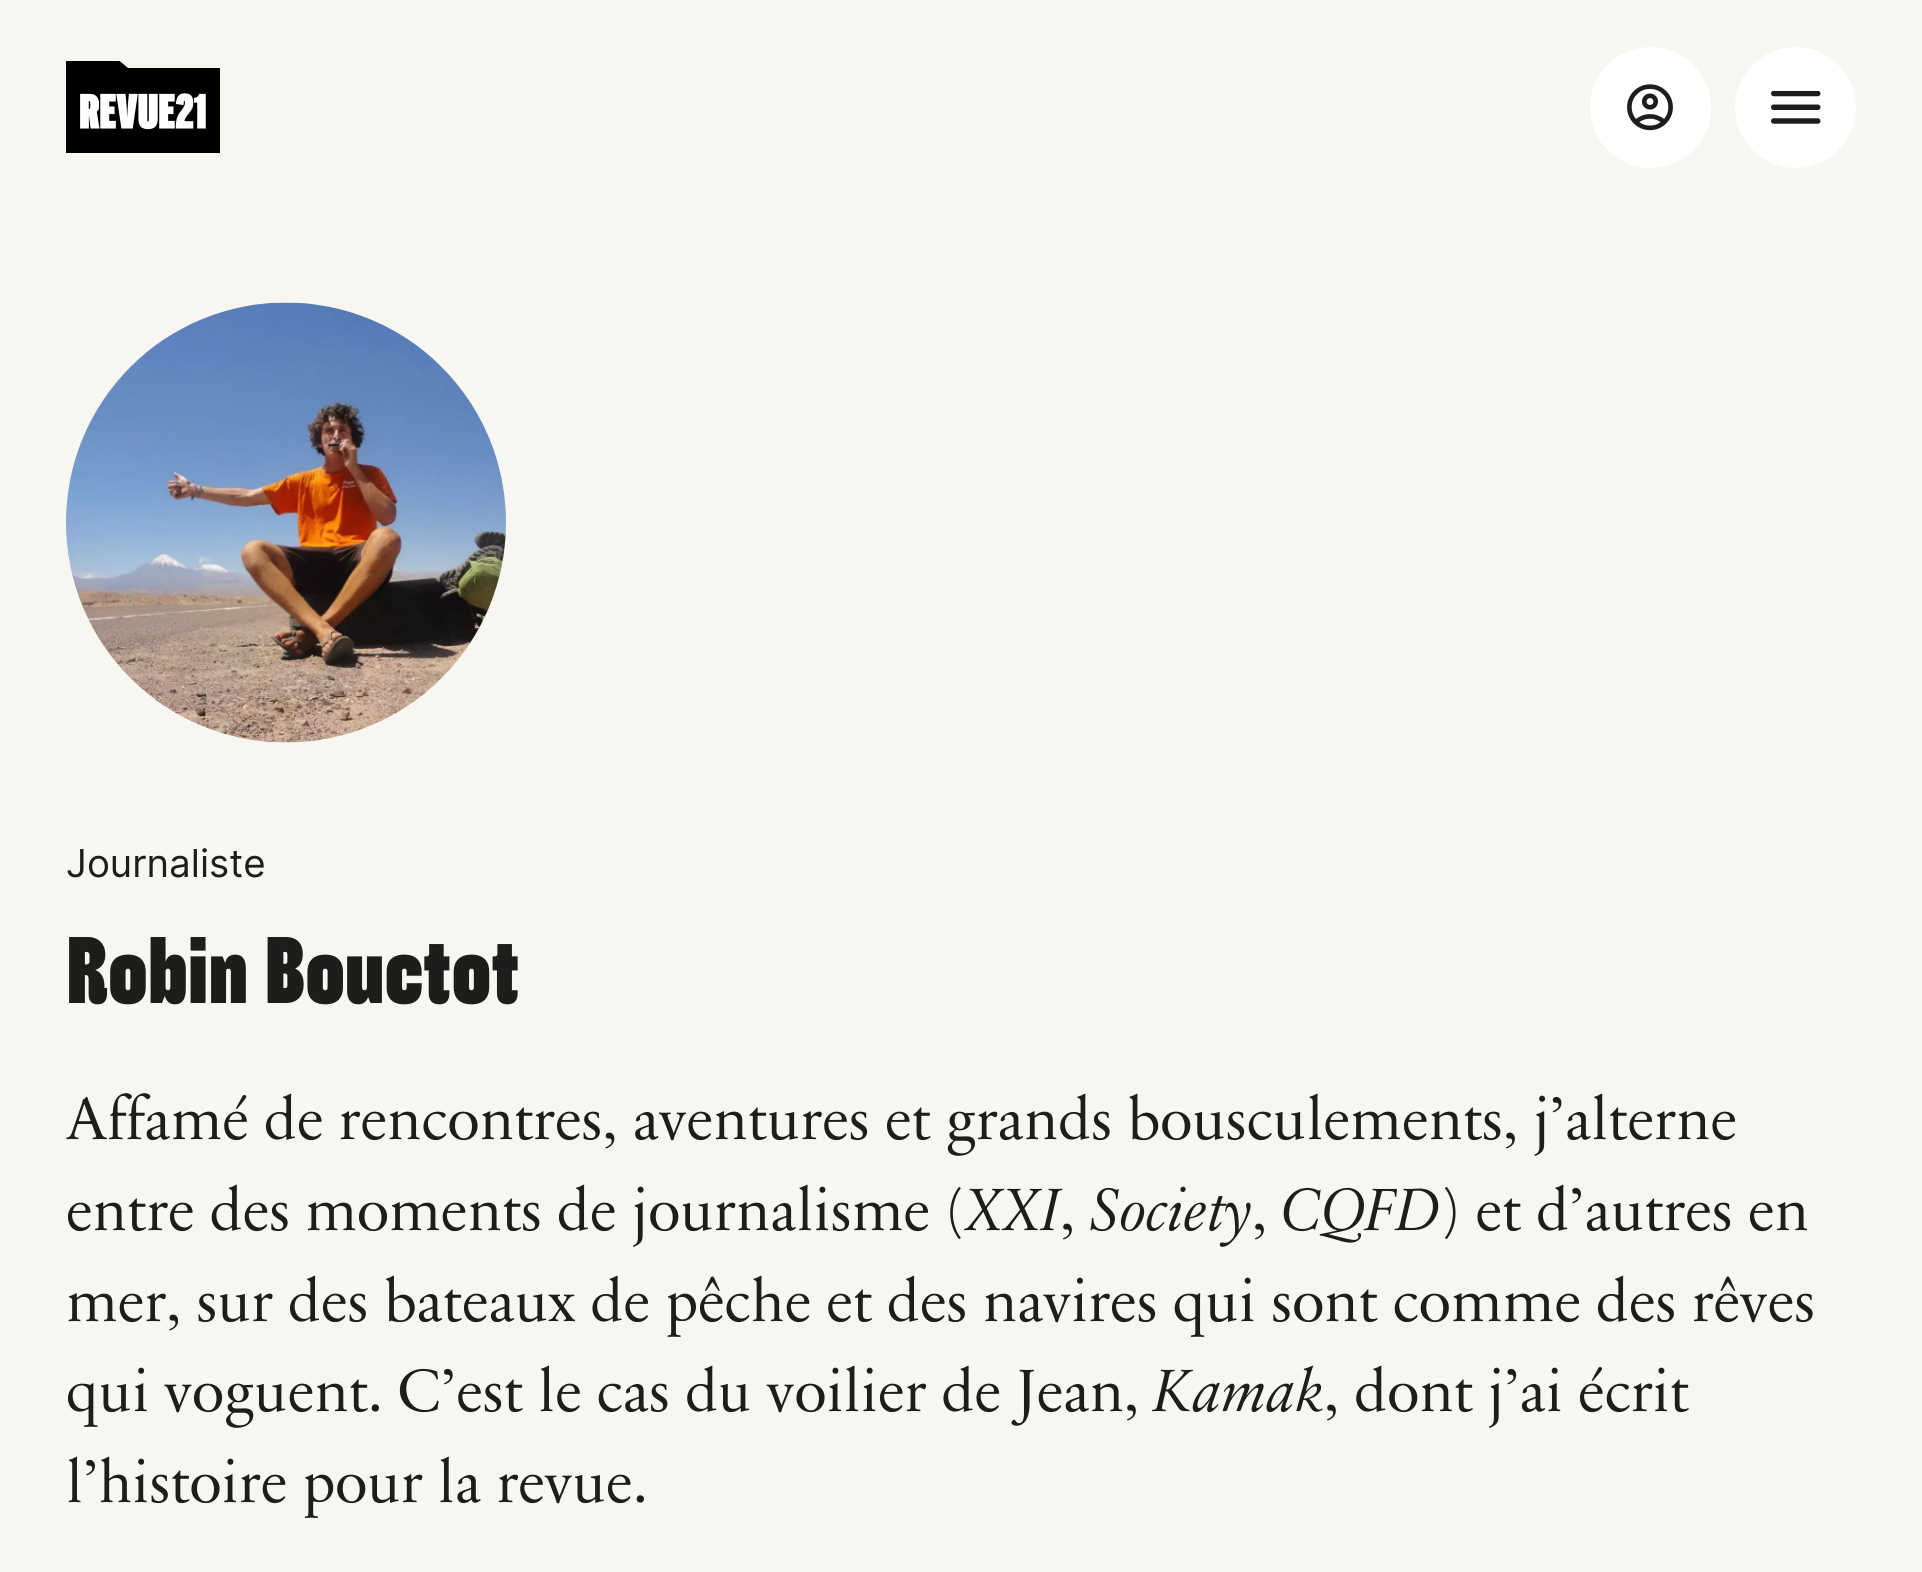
import math
import cairo


def paste(ctx, path, x, y, w, h):
	ctx.save()
	ctx.set_source_surface(cairo.ImageSurface.create_from_png(path), x, y)
	ctx.rectangle(x, y, w, h)
	ctx.fill()
	ctx.restore()

def draw(ctx):
	ctx.set_source_rgb(0.965, 0.961, 0.945)
	ctx.paint()
	paste(ctx, 'media/1.png', 66, 61, 154, 92)
	ctx.set_source_rgb(1, 1, 1)
	ctx.arc(1650.5, 107.5, 60.5, 0, 2 * math.pi)
	ctx.fill()
	paste(ctx, 'media/2.png', 1627, 84, 46, 47)
	ctx.arc(1795.5, 107.5, 60.5, 0, 2 * math.pi)
	ctx.fill()
	paste(ctx, 'media/3.png', 1771, 91, 50, 33)
	paste(ctx, 'media/4.png', 66, 302, 440, 441)
	ctx.select_font_face('Inter')
	ctx.set_font_size(38.5)
	ctx.set_source_rgb(0.114, 0.114, 0.106)
	ctx.move_to(66, 877)
	ctx.show_text('Journaliste')
	ctx.select_font_face('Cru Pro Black')
	ctx.set_font_size(88)
	ctx.move_to(66, 1003)
	ctx.show_text('Robin Bouctot')
	ctx.select_font_face('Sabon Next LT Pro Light')
	ctx.set_font_size(60.5)
	ctx.move_to(66, 1139)
	ctx.show_text('Affamé de rencontres, aventures et grands bousculements, j’alterne')
	ctx.move_to(66, 1230)
	ctx.show_text('entre des moments de journalisme (')
	ctx.select_font_face('Sabon Next LT Pro Light', cairo.FONT_SLANT_ITALIC)
	ctx.move_to(966, 1230)
	ctx.show_text('XXI')
	ctx.select_font_face('Sabon Next LT Pro Light')
	ctx.move_to(1060, 1230)
	ctx.show_text(',')
	ctx.select_font_face('Sabon Next LT Pro Light', cairo.FONT_SLANT_ITALIC)
	ctx.move_to(1090, 1230)
	ctx.show_text('Society')
	ctx.select_font_face('Sabon Next LT Pro Light')
	ctx.move_to(1252, 1230)
	ctx.show_text(',')
	ctx.select_font_face('Sabon Next LT Pro Light', cairo.FONT_SLANT_ITALIC)
	ctx.move_to(1282, 1230)
	ctx.show_text('CQFD')
	ctx.select_font_face('Sabon Next LT Pro Light')
	for x, y, s in [
		(1440, 1230, ') et d’autres en'),
		(66, 1321, 'mer, sur des bateaux de pêche et des navires qui sont comme des rêves'),
		(66, 1411, 'qui voguent. C’est le cas du voilier de Jean,'),
	]:
		ctx.move_to(x, y)
		ctx.show_text(s)
	ctx.select_font_face('Sabon Next LT Pro Light', cairo.FONT_SLANT_ITALIC)
	ctx.move_to(1154, 1411)
	ctx.show_text('Kamak')
	ctx.select_font_face('Sabon Next LT Pro Light')
	ctx.move_to(1324, 1411)
	ctx.show_text(', dont j’ai écrit')
	ctx.move_to(66, 1502)
	ctx.show_text('l’histoire pour la revue.')


surface = cairo.ImageSurface(cairo.FORMAT_RGB24, 1922, 1572)
ctx = cairo.Context(surface)
options = cairo.FontOptions()
options.set_hint_metrics(cairo.HINT_METRICS_OFF)
options.set_hint_style(cairo.HINT_STYLE_NONE)
ctx.set_font_options(options)
ctx.set_miter_limit(4)
draw(ctx)
surface.write_to_png('image.png')
